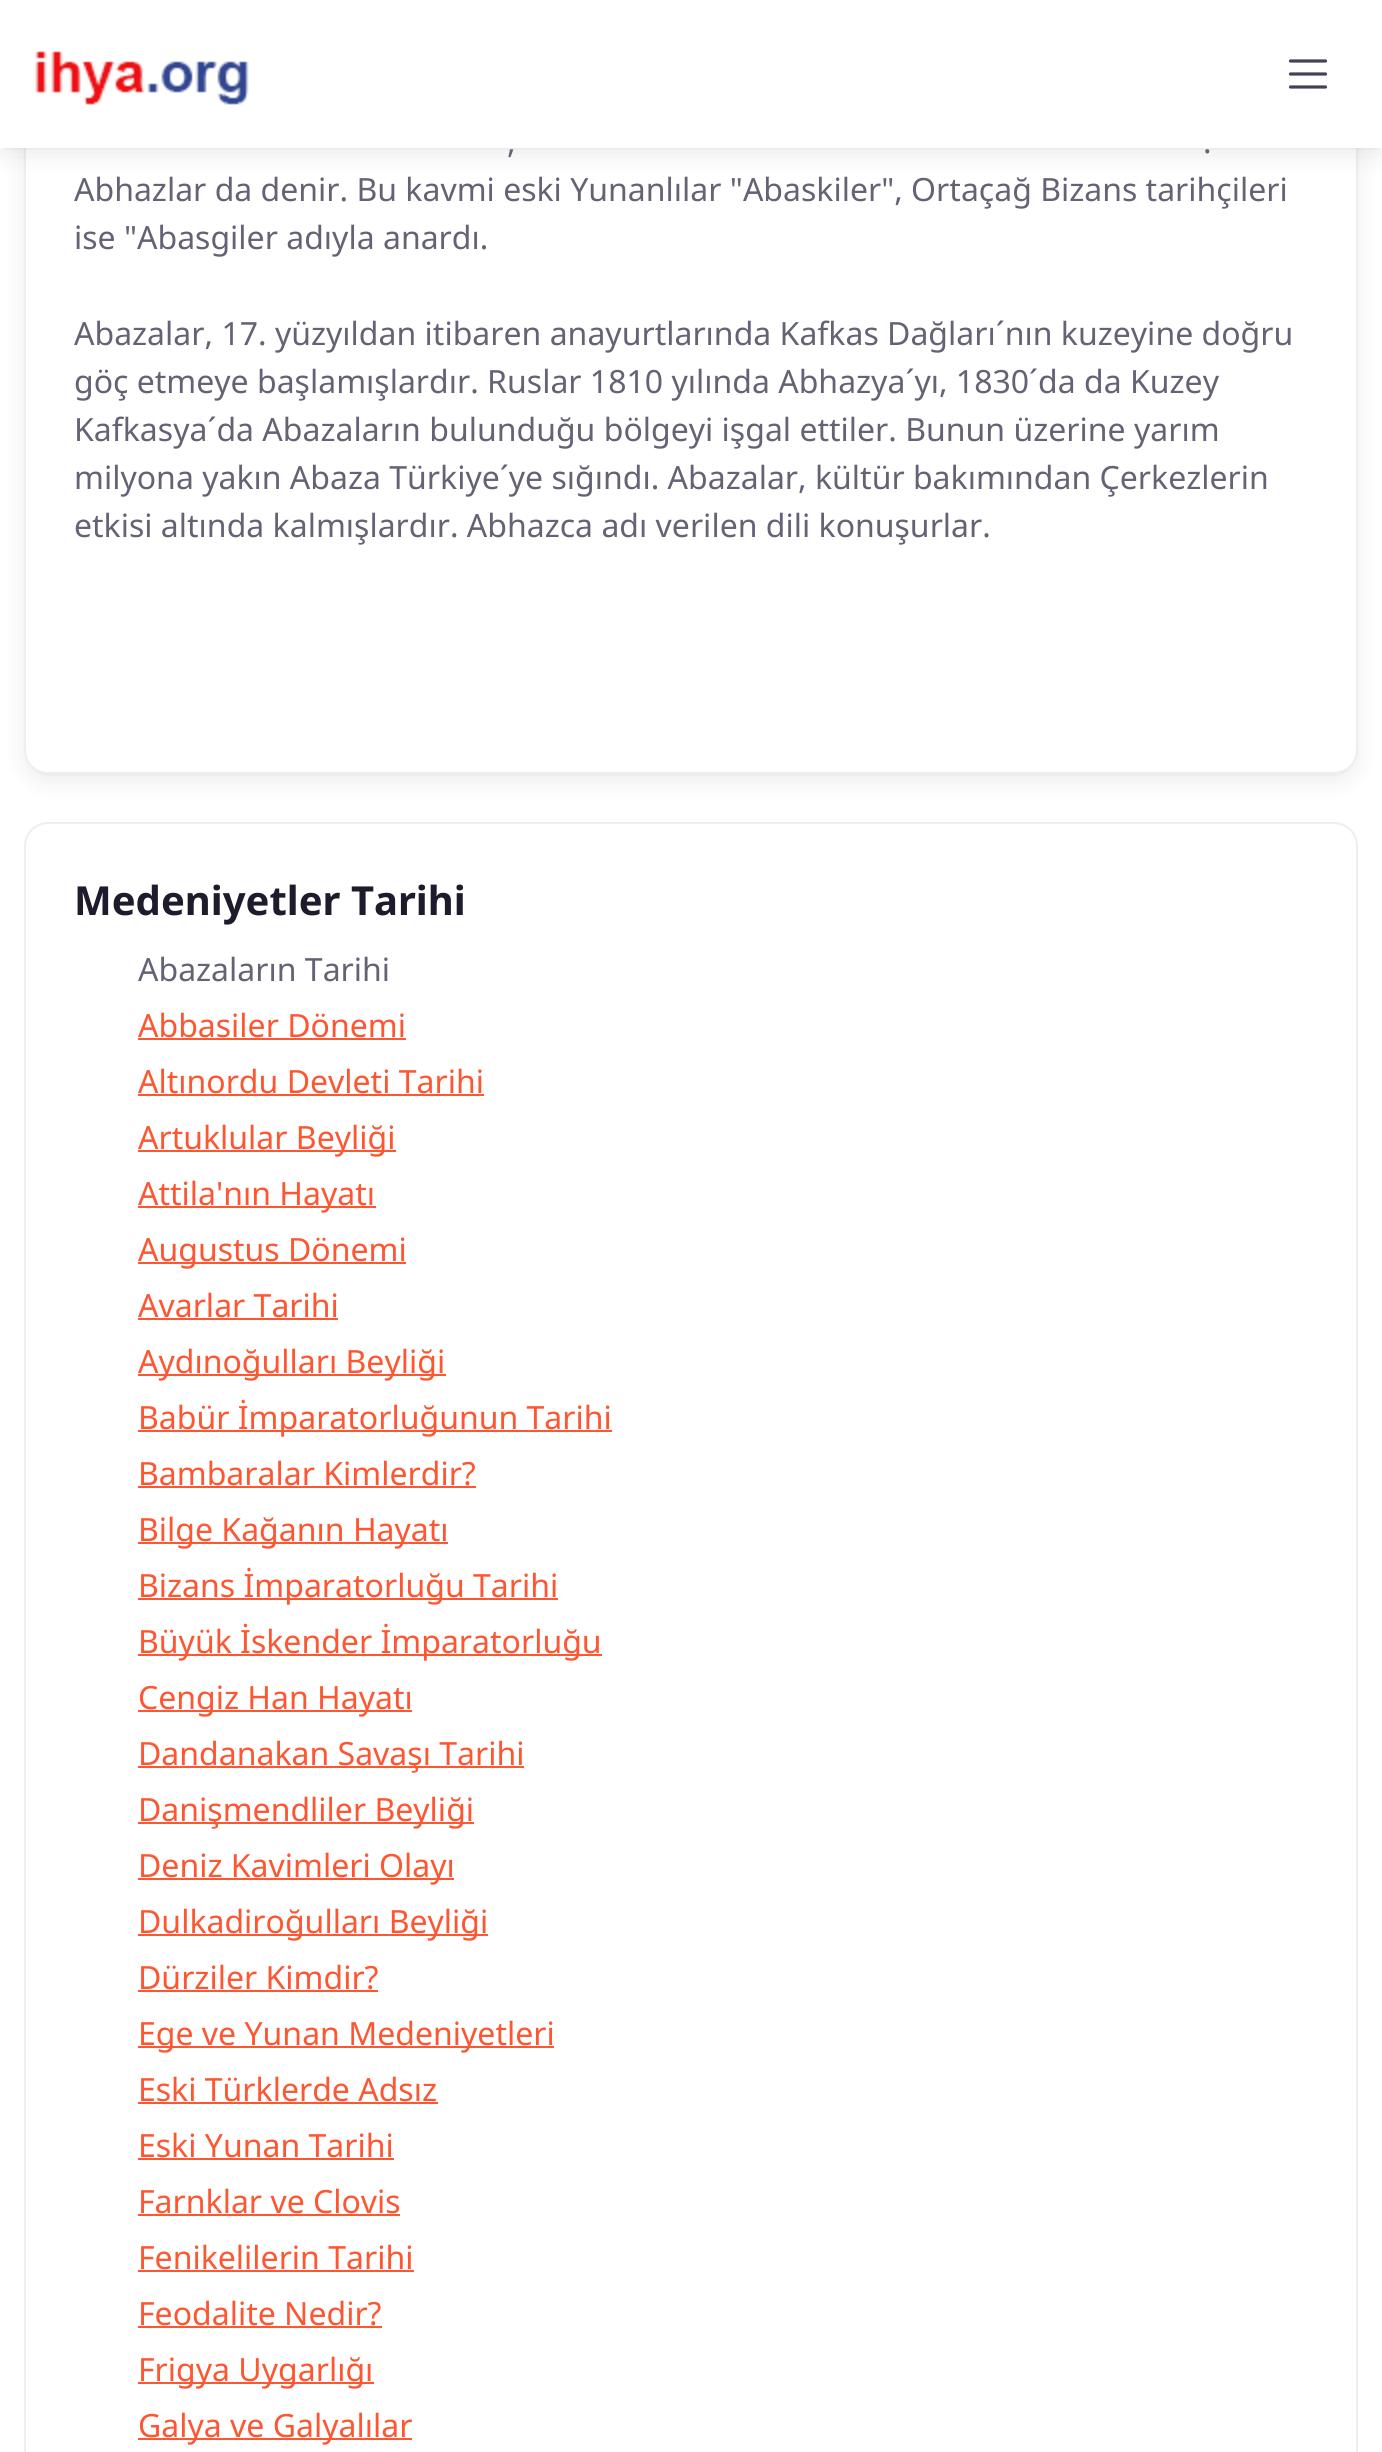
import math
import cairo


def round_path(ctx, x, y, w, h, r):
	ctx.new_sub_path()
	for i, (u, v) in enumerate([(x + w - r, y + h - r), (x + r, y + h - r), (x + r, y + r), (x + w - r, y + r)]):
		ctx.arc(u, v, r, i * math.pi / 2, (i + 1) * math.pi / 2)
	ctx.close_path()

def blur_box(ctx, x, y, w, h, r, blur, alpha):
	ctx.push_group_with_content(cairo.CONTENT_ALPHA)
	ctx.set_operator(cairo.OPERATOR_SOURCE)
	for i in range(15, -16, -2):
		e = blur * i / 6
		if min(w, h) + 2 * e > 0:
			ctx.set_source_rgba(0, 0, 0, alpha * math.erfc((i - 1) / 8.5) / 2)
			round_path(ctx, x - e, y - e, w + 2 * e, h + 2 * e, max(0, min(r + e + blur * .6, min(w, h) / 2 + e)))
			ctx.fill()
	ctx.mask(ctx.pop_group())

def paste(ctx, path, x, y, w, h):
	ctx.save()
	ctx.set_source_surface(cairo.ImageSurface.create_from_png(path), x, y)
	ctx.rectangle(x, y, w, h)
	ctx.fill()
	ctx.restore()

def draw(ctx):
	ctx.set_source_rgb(1, 1, 1)
	ctx.paint()
	ctx.set_source_rgb(0.122, 0.106, 0.176)
	blur_box(ctx, 24, -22, 1334, 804, 24, 12, 0.08)
	blur_box(ctx, 28, -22, 1326, 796, 20, 2, 0.08)
	ctx.set_source_rgb(1, 1, 1)
	round_path(ctx, 25, -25, 1332, 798, 23)
	ctx.fill_preserve()
	ctx.set_source_rgb(0.937, 0.925, 0.953)
	ctx.stroke()
	ctx.set_source_rgb(0.122, 0.106, 0.176)
	blur_box(ctx, 0, 8, 1382, 148, 0, 12, 0.08)
	blur_box(ctx, 4, 8, 1374, 140, 0, 2, 0.08)
	ctx.set_source_rgb(1, 1, 1)
	ctx.rectangle(0, 0, 1382, 148)
	ctx.fill()
	paste(ctx, 'media/1.png', 35, 51, 214, 54)
	ctx.new_path()
	ctx.move_to(1290.5, 61)
	ctx.line_to(1325.5, 61)
	ctx.move_to(1290.5, 74)
	ctx.line_to(1325.5, 74)
	ctx.move_to(1290.5, 87)
	ctx.line_to(1325.5, 87)
	ctx.set_source_rgb(0.271, 0.251, 0.337)
	ctx.set_line_width(3.2)
	ctx.set_line_cap(cairo.LINE_CAP_ROUND)
	ctx.stroke()
	ctx.select_font_face('Noto Sans')
	ctx.set_font_size(32)
	ctx.set_source_rgb(0.4, 0.384, 0.463)
	for x, y, s in [
		(507, 153, ','),
		(1203, 153, '.'),
		(74, 201, 'Abhazlar da denir. Bu kavmi eski Yunanlılar "Abaskiler", Ortaçağ Bizans tarihçileri'),
		(74, 249, 'ise "Abasgiler adıyla anardı.'),
		(74, 345, 'Abazalar, 17. yüzyıldan itibaren anayurtlarında Kafkas Dağları´nın kuzeyine doğru'),
		(74, 393, 'göç etmeye başlamışlardır. Ruslar 1810 yılında Abhazya´yı, 1830´da da Kuzey'),
		(74, 441, 'Kafkasya´da Abazaların bulunduğu bölgeyi işgal ettiler. Bunun üzerine yarım'),
		(74, 489, 'milyona yakın Abaza Türkiye´ye sığındı. Abazalar, kültür bakımından Çerkezlerin'),
		(74, 537, 'etkisi altında kalmışlardır. Abhazca adı verilen dili konuşurlar.'),
	]:
		ctx.move_to(x, y)
		ctx.show_text(s)
	round_path(ctx, 25, 823, 1332, 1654, 23)
	ctx.set_source_rgb(0.937, 0.925, 0.953)
	ctx.set_line_width(2)
	ctx.set_line_cap(cairo.LINE_CAP_BUTT)
	ctx.stroke()
	ctx.select_font_face('Noto Sans', cairo.FONT_SLANT_NORMAL, cairo.FONT_WEIGHT_BOLD)
	ctx.set_font_size(40)
	ctx.set_source_rgb(0.122, 0.106, 0.176)
	ctx.move_to(74, 915)
	ctx.show_text('Medeniyetler Tarihi')
	ctx.select_font_face('Noto Sans')
	ctx.set_font_size(32)
	ctx.set_source_rgb(0.4, 0.384, 0.463)
	ctx.move_to(138, 981)
	ctx.show_text('Abazaların Tarihi')
	ctx.set_source_rgb(0.992, 0.337, 0.192)
	ctx.move_to(138, 1037)
	ctx.show_text('Abbasiler Dönemi')
	ctx.rectangle(138, 1038, 268, 2)
	ctx.fill()
	ctx.move_to(138, 1093)
	ctx.show_text('Altınordu Devleti Tarihi')
	ctx.rectangle(138, 1094, 346, 2)
	ctx.fill()
	ctx.rectangle(138, 1150, 258, 2)
	ctx.fill()
	ctx.move_to(138, 1149)
	ctx.show_text('Artuklular Beyliği')
	ctx.rectangle(138, 1206, 238, 2)
	ctx.fill()
	ctx.move_to(138, 1205)
	ctx.show_text('Attila\'nın Hayatı')
	ctx.rectangle(138, 1262, 268, 2)
	ctx.fill()
	ctx.move_to(138, 1261)
	ctx.show_text('Augustus Dönemi')
	ctx.move_to(138, 1317)
	ctx.show_text('Avarlar Tarihi')
	ctx.rectangle(138, 1318, 200, 2)
	ctx.fill()
	ctx.rectangle(138, 1374, 308, 2)
	ctx.fill()
	ctx.move_to(138, 1373)
	ctx.show_text('Aydınoğulları Beyliği')
	ctx.rectangle(138, 1430, 474, 2)
	ctx.fill()
	ctx.move_to(138, 1429)
	ctx.show_text('Babür İmparatorluğunun Tarihi')
	ctx.move_to(138, 1485)
	ctx.show_text('Bambaralar Kimlerdir?')
	ctx.rectangle(138, 1486, 338, 2)
	ctx.fill()
	ctx.rectangle(138, 1542, 310, 2)
	ctx.fill()
	ctx.move_to(138, 1541)
	ctx.show_text('Bilge Kağanın Hayatı')
	ctx.rectangle(138, 1598, 420, 2)
	ctx.fill()
	ctx.move_to(138, 1597)
	ctx.show_text('Bizans İmparatorluğu Tarihi')
	ctx.rectangle(138, 1654, 464, 2)
	ctx.fill()
	ctx.move_to(138, 1653)
	ctx.show_text('Büyük İskender İmparatorluğu')
	ctx.rectangle(138, 1710, 274, 2)
	ctx.fill()
	ctx.move_to(138, 1709)
	ctx.show_text('Cengiz Han Hayatı')
	ctx.rectangle(138, 1766, 386, 2)
	ctx.fill()
	ctx.move_to(138, 1765)
	ctx.show_text('Dandanakan Savaşı Tarihi')
	ctx.rectangle(138, 1822, 336, 2)
	ctx.fill()
	ctx.move_to(138, 1821)
	ctx.show_text('Danişmendliler Beyliği')
	ctx.rectangle(138, 1878, 316, 2)
	ctx.fill()
	ctx.move_to(138, 1877)
	ctx.show_text('Deniz Kavimleri Olayı')
	ctx.rectangle(138, 1934, 350, 2)
	ctx.fill()
	ctx.move_to(138, 1933)
	ctx.show_text('Dulkadiroğulları Beyliği')
	ctx.move_to(138, 1989)
	ctx.show_text('Dürziler Kimdir?')
	ctx.rectangle(138, 1990, 240, 2)
	ctx.fill()
	ctx.rectangle(138, 2046, 416, 2)
	ctx.fill()
	ctx.move_to(138, 2045)
	ctx.show_text('Ege ve Yunan Medeniyetleri')
	ctx.move_to(138, 2101)
	ctx.show_text('Eski Türklerde Adsız')
	ctx.rectangle(138, 2102, 300, 2)
	ctx.fill()
	ctx.move_to(138, 2157)
	ctx.show_text('Eski Yunan Tarihi')
	ctx.rectangle(138, 2158, 256, 2)
	ctx.fill()
	ctx.move_to(138, 2213)
	ctx.show_text('Farnklar ve Clovis')
	ctx.rectangle(138, 2214, 262, 2)
	ctx.fill()
	ctx.move_to(138, 2269)
	ctx.show_text('Fenikelilerin Tarihi')
	ctx.rectangle(138, 2270, 276, 2)
	ctx.fill()
	ctx.move_to(138, 2325)
	ctx.show_text('Feodalite Nedir?')
	ctx.rectangle(138, 2326, 244, 2)
	ctx.fill()
	ctx.rectangle(138, 2382, 236, 2)
	ctx.fill()
	ctx.move_to(138, 2381)
	ctx.show_text('Frigya Uygarlığı')
	ctx.rectangle(138, 2438, 274, 2)
	ctx.fill()
	ctx.move_to(138, 2437)
	ctx.show_text('Galya ve Galyalılar')


surface = cairo.ImageSurface(cairo.FORMAT_RGB24, 1382, 2452)
ctx = cairo.Context(surface)
options = cairo.FontOptions()
options.set_hint_metrics(cairo.HINT_METRICS_OFF)
options.set_hint_style(cairo.HINT_STYLE_NONE)
ctx.set_font_options(options)
ctx.set_miter_limit(4)
draw(ctx)
surface.write_to_png('image.png')
